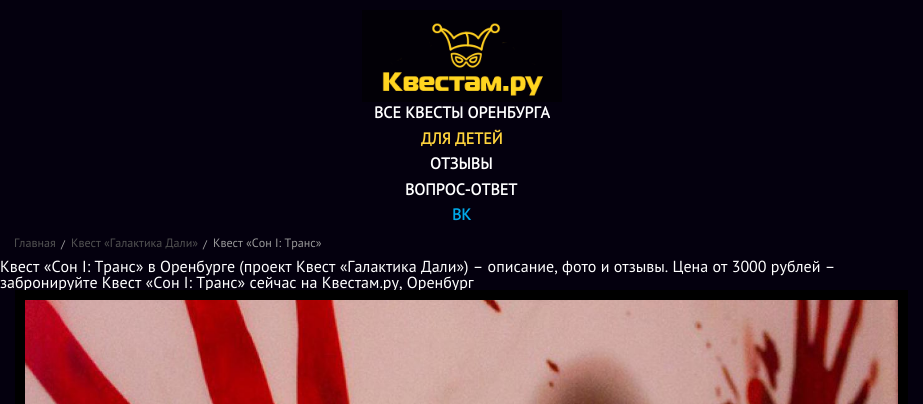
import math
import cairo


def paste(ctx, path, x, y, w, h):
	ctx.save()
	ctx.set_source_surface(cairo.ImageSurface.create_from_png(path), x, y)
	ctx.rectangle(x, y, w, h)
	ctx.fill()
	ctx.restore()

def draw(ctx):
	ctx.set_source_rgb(0.016, 0, 0.055)
	ctx.paint()
	paste(ctx, 'media/1.png', 362, 10, 200, 92)
	ctx.select_font_face('PT Sans', cairo.FONT_SLANT_NORMAL, cairo.FONT_WEIGHT_BOLD)
	ctx.set_font_size(16)
	ctx.set_source_rgb(1, 1, 1)
	ctx.move_to(374, 118)
	ctx.show_text('ВСЕ КВЕСТЫ ОРЕНБУРГА')
	ctx.set_source_rgb(1, 0.831, 0.235)
	ctx.move_to(421, 144)
	ctx.show_text('ДЛЯ ДЕТЕЙ')
	ctx.set_source_rgb(1, 1, 1)
	ctx.move_to(430, 169)
	ctx.show_text('ОТЗЫВЫ')
	ctx.move_to(405, 195)
	ctx.show_text('ВОПРОС-ОТВЕТ')
	ctx.set_source_rgb(0, 0.663, 0.91)
	ctx.move_to(452, 220)
	ctx.show_text('ВК')
	ctx.select_font_face('PT Sans')
	ctx.set_font_size(12.1)
	ctx.set_source_rgb(0.318, 0.318, 0.318)
	ctx.move_to(14, 247)
	ctx.show_text('Главная')
	ctx.set_font_size(11)
	ctx.set_source_rgb(0.667, 0.667, 0.667)
	ctx.move_to(61, 248)
	ctx.show_text('/')
	ctx.set_font_size(12.1)
	ctx.set_source_rgb(0.318, 0.318, 0.318)
	ctx.move_to(71, 247)
	ctx.show_text('Квест «Галактика Дали»')
	ctx.set_font_size(11)
	ctx.set_source_rgb(0.667, 0.667, 0.667)
	ctx.move_to(203, 248)
	ctx.show_text('/')
	ctx.set_font_size(12.1)
	ctx.set_source_rgb(0.604, 0.604, 0.604)
	ctx.move_to(213, 247)
	ctx.show_text('Квест «Сон I: Транс»')
	ctx.set_font_size(16)
	ctx.set_source_rgb(1, 1, 1)
	ctx.move_to(0, 272)
	ctx.show_text('Квест «Сон I: Транс» в Оренбурге (проект Квест «Галактика Дали») – описание, фото и отзывы. Цена от 3000 рублей –')
	ctx.move_to(0, 288)
	ctx.show_text('забронируйте Квест «Сон I: Транс» сейчас на Квестам.ру, Оренбург')
	ctx.set_source_rgb(0, 0, 0)
	ctx.rectangle(15, 290, 893, 114)
	ctx.fill()
	paste(ctx, 'media/2.png', 25, 300, 873, 104)


surface = cairo.ImageSurface(cairo.FORMAT_RGB24, 923, 404)
ctx = cairo.Context(surface)
options = cairo.FontOptions()
options.set_hint_metrics(cairo.HINT_METRICS_OFF)
options.set_hint_style(cairo.HINT_STYLE_NONE)
ctx.set_font_options(options)
ctx.set_miter_limit(4)
draw(ctx)
surface.write_to_png('image.png')
